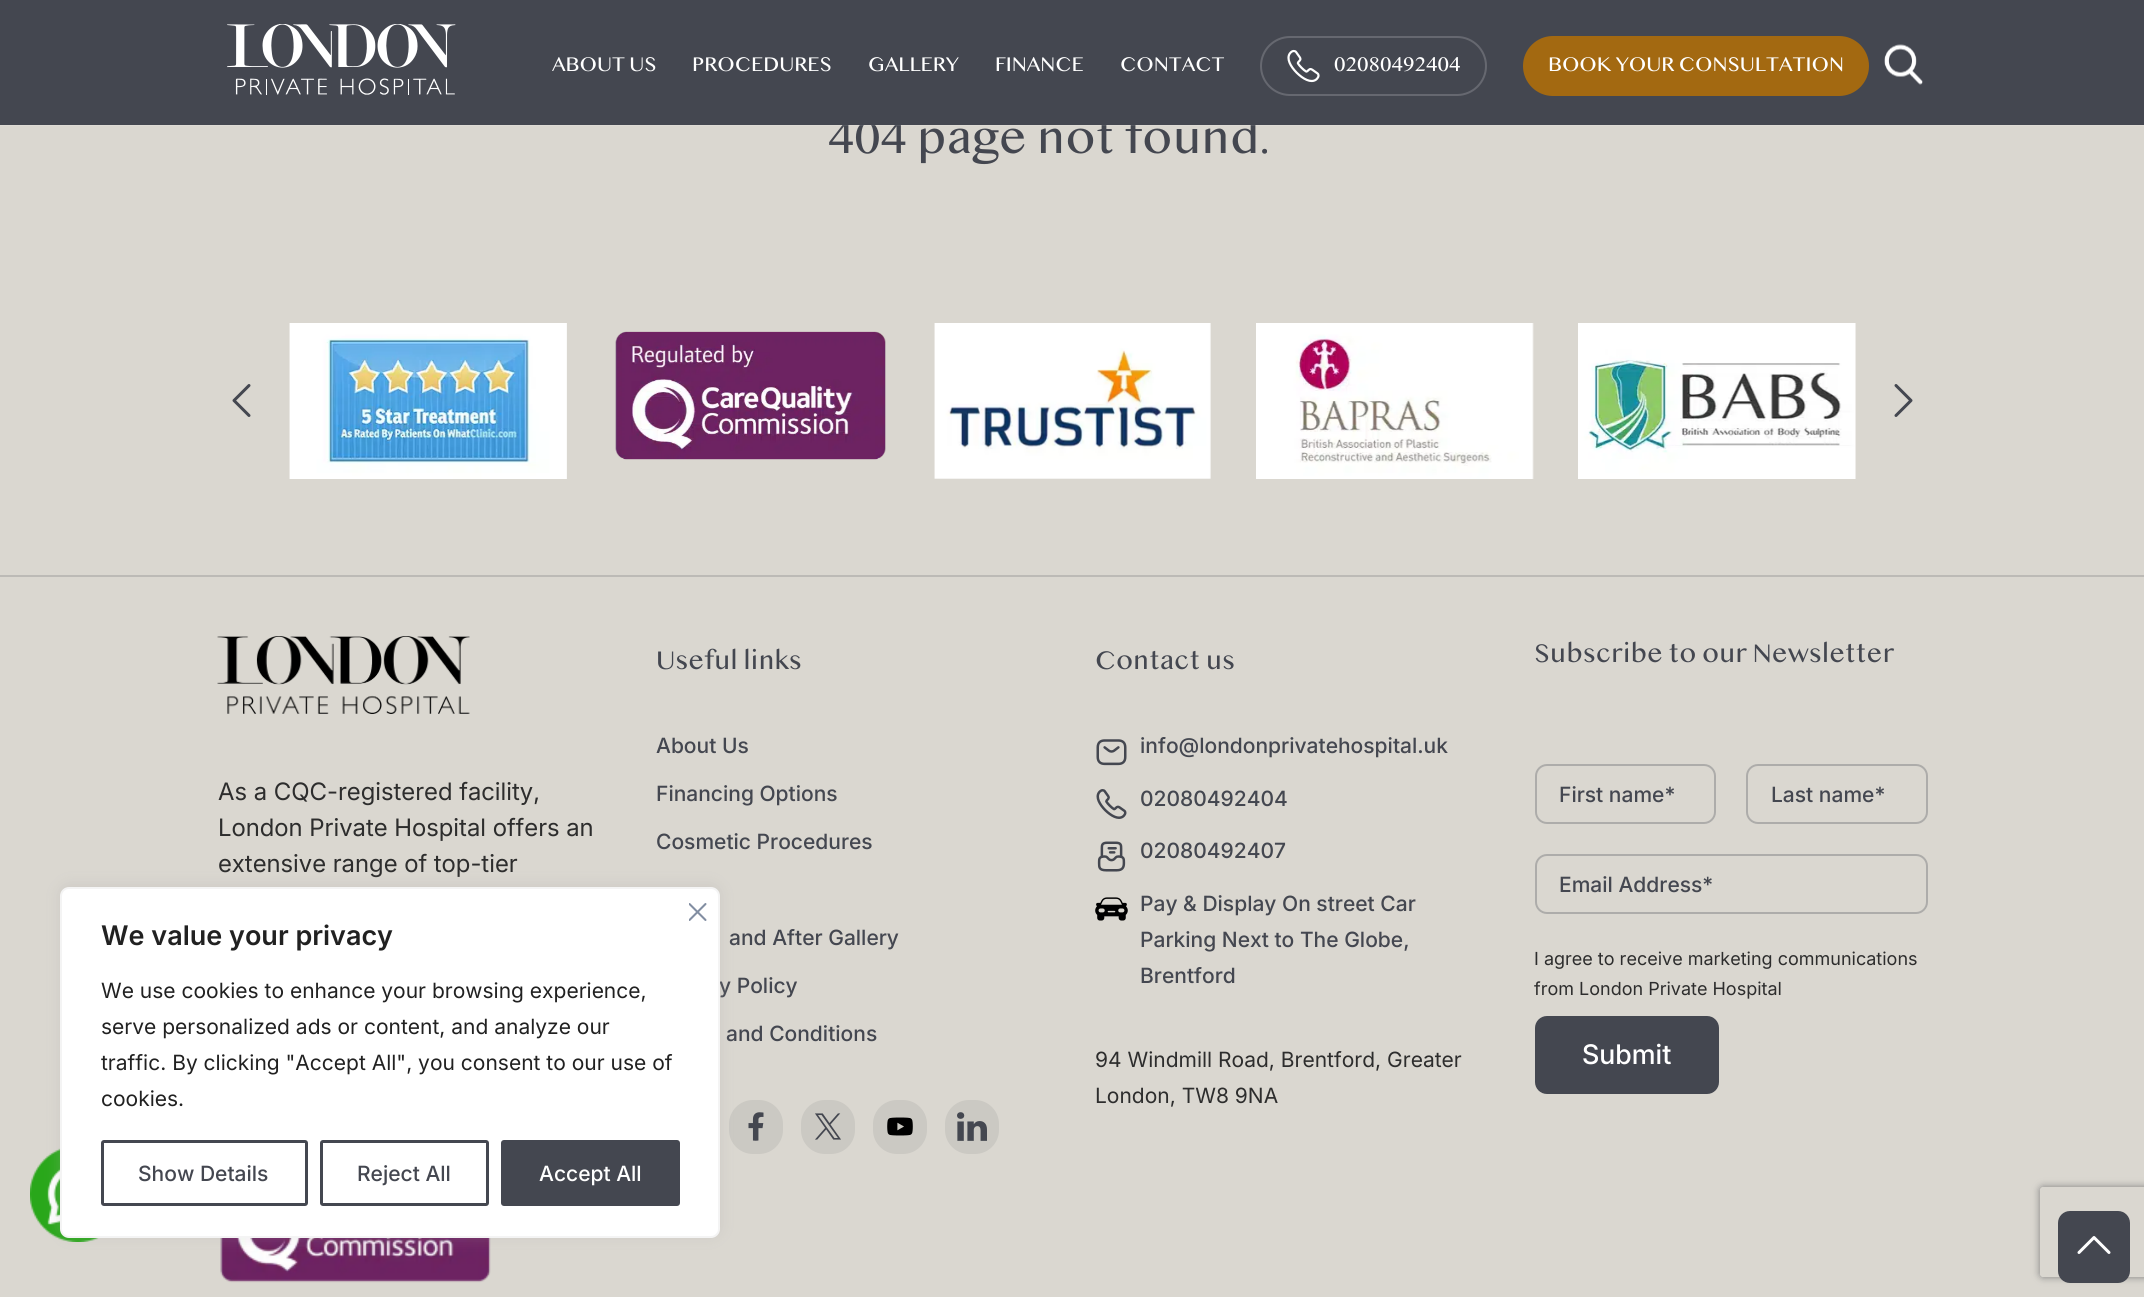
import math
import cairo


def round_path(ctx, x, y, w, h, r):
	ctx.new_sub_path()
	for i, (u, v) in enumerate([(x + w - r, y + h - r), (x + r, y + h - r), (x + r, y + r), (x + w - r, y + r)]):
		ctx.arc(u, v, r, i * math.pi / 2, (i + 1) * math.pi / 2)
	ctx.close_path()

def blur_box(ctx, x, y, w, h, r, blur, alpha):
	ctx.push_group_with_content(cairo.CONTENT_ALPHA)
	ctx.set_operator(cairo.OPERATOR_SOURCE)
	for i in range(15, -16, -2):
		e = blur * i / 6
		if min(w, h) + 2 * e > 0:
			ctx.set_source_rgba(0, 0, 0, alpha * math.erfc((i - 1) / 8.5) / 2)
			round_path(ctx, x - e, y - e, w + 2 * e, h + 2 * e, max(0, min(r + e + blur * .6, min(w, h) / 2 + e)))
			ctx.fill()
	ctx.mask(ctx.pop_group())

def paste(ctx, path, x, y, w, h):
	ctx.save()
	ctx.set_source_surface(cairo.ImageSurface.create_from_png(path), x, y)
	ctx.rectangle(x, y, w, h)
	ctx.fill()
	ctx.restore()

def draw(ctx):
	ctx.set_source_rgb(0.855, 0.843, 0.816)
	ctx.paint()
	ctx.select_font_face('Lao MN')
	ctx.set_font_size(48)
	ctx.set_source_rgb(0.267, 0.278, 0.314)
	ctx.move_to(828, 153)
	ctx.show_text('404 page not found.')
	ctx.rectangle(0, 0, 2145, 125)
	ctx.set_source_rgba(1, 1, 1, 0.1)
	ctx.stroke()
	ctx.set_source_rgb(0.267, 0.278, 0.314)
	ctx.rectangle(0, 0, 2144, 125)
	ctx.fill()
	paste(ctx, 'media/1.png', 227, 24, 229, 71)
	ctx.set_font_size(21)
	ctx.set_source_rgb(1, 1, 1)
	for x, y, s in [
		(552, 71, 'ABOUT US'),
		(692, 71, 'PROCEDURES'),
		(868, 71, 'GALLERY'),
		(995, 71, 'FINANCE'),
		(1120, 71, 'CONTACT'),
	]:
		ctx.move_to(x, y)
		ctx.show_text(s)
	round_path(ctx, 1261, 37, 225, 58, 29)
	ctx.set_source_rgb(0.4, 0.408, 0.439)
	ctx.stroke()
	paste(ctx, 'media/2.png', 1287, 49, 33, 34)
	ctx.set_source_rgb(1, 1, 1)
	ctx.move_to(1334, 71)
	ctx.show_text('02080492404')
	ctx.set_source_rgb(0.639, 0.412, 0.067)
	round_path(ctx, 1524, 37, 344, 58, 29)
	ctx.fill_preserve()
	ctx.stroke()
	ctx.set_source_rgb(1, 1, 1)
	ctx.move_to(1548, 71)
	ctx.show_text('BOOK YOUR CONSULTATION')
	paste(ctx, 'media/3.png', 1884, 44, 39, 41)
	paste(ctx, 'media/4.png', 289, 323, 278, 156)
	paste(ctx, 'media/5.png', 615, 331, 271, 129)
	paste(ctx, 'media/6.png', 934, 323, 277, 156)
	paste(ctx, 'media/7.png', 1256, 323, 278, 156)
	paste(ctx, 'media/8.png', 1578, 323, 278, 156)
	paste(ctx, 'media/9.png', 232, 384, 19, 33)
	paste(ctx, 'media/10.png', 1894, 384, 19, 33)
	ctx.set_source_rgb(0.737, 0.729, 0.714)
	ctx.rectangle(0, 575, 2144, 2)
	ctx.fill()
	paste(ctx, 'media/11.png', 217, 636, 253, 78)
	ctx.select_font_face('Inter')
	ctx.set_font_size(24)
	ctx.set_source_rgb(0.176, 0.176, 0.176)
	for x, y, s in [
		(218, 800, 'As a CQC-registered facility,'),
		(218, 836, 'London Private Hospital offers an'),
		(218, 872, 'extensive range of top-tier'),
	]:
		ctx.move_to(x, y)
		ctx.show_text(s)
	paste(ctx, 'media/12.png', 220, 1238, 271, 45)
	ctx.select_font_face('Lao MN')
	ctx.set_font_size(27)
	ctx.set_source_rgb(0.267, 0.278, 0.314)
	ctx.move_to(656, 669)
	ctx.show_text('Useful links')
	ctx.select_font_face('Inter Medium')
	ctx.set_font_size(21)
	for x, y, s in [
		(656, 753, 'About Us'),
		(656, 801, 'Financing Options'),
		(656, 849, 'Cosmetic Procedures'),
		(729, 945, 'and After Gallery'),
		(719, 993, 'y Policy'),
		(726, 1041, 'and Conditions'),
	]:
		ctx.move_to(x, y)
		ctx.show_text(s)
	ctx.set_source_rgb(0.796, 0.788, 0.765)
	round_path(ctx, 729, 1100, 54, 54, 24)
	ctx.fill()
	paste(ctx, 'media/13.png', 748, 1112, 16, 29)
	round_path(ctx, 801, 1100, 54, 54, 24)
	ctx.fill()
	paste(ctx, 'media/14.png', 815, 1113, 26, 27)
	round_path(ctx, 873, 1100, 54, 54, 24)
	ctx.fill()
	paste(ctx, 'media/15.png', 887, 1117, 26, 19)
	round_path(ctx, 945, 1100, 54, 54, 24)
	ctx.fill()
	paste(ctx, 'media/16.png', 957, 1112, 30, 29)
	ctx.select_font_face('Lao MN')
	ctx.set_font_size(27)
	ctx.set_source_rgb(0.267, 0.278, 0.314)
	ctx.move_to(1095, 669)
	ctx.show_text('Contact us')
	paste(ctx, 'media/17.png', 1096, 739, 31, 27)
	ctx.select_font_face('Inter Medium')
	ctx.set_font_size(21)
	ctx.move_to(1140, 753)
	ctx.show_text('info@londonprivatehospital.uk')
	paste(ctx, 'media/18.png', 1096, 789, 31, 30)
	ctx.move_to(1140, 806)
	ctx.show_text('02080492404')
	paste(ctx, 'media/19.png', 1097, 841, 29, 31)
	ctx.move_to(1140, 858)
	ctx.show_text('02080492407')
	paste(ctx, 'media/20.png', 1095, 897, 33, 24)
	for x, y, s in [
		(1140, 911, 'Pay & Display On street Car'),
		(1140, 947, 'Parking Next to The Globe,'),
		(1140, 983, 'Brentford'),
	]:
		ctx.move_to(x, y)
		ctx.show_text(s)
	ctx.select_font_face('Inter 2')
	ctx.set_source_rgb(0.176, 0.176, 0.176)
	ctx.move_to(1095, 1067)
	ctx.show_text('94 Windmill Road, Brentford, Greater')
	ctx.move_to(1095, 1103)
	ctx.show_text('London, TW8 9NA')
	ctx.select_font_face('Lao MN')
	ctx.set_font_size(27)
	ctx.set_source_rgb(0.267, 0.278, 0.314)
	ctx.move_to(1534, 662)
	ctx.show_text('Subscribe to our Newsletter')
	round_path(ctx, 1536, 765, 179, 58, 11)
	ctx.set_source_rgb(0.678, 0.675, 0.667)
	ctx.stroke()
	ctx.select_font_face('Inter Medium')
	ctx.set_font_size(21)
	ctx.set_source_rgb(0.267, 0.278, 0.314)
	ctx.move_to(1559, 802)
	ctx.show_text('First name*')
	round_path(ctx, 1747, 765, 180, 58, 11)
	ctx.set_source_rgb(0.678, 0.675, 0.667)
	ctx.stroke()
	ctx.set_source_rgb(0.267, 0.278, 0.314)
	ctx.move_to(1771, 802)
	ctx.show_text('Last name*')
	round_path(ctx, 1536, 855, 391, 58, 11)
	ctx.set_source_rgb(0.678, 0.675, 0.667)
	ctx.stroke()
	ctx.set_source_rgb(0.267, 0.278, 0.314)
	ctx.move_to(1559, 892)
	ctx.show_text('Email Address*')
	ctx.select_font_face('Inter 2')
	ctx.set_font_size(18)
	ctx.set_source_rgb(0.176, 0.176, 0.176)
	ctx.move_to(1534, 965)
	ctx.show_text('I agree to receive marketing communications')
	ctx.move_to(1534, 995)
	ctx.show_text('from London Private Hospital')
	ctx.set_source_rgb(0.267, 0.278, 0.314)
	round_path(ctx, 1535, 1016, 184, 78, 12)
	ctx.fill()
	ctx.select_font_face('Inter 2 Medium')
	ctx.set_font_size(27)
	ctx.set_source_rgb(1, 1, 1)
	ctx.move_to(1582, 1064)
	ctx.show_text('Submit')
	paste(ctx, 'media/21.png', 30, 1148, 69, 94)
	ctx.set_source_rgb(0.675, 0.671, 0.671)
	blur_box(ctx, 60, 885, 660, 351, 9, 7.5, 0.3)
	ctx.set_source_rgb(1, 1, 1)
	round_path(ctx, 61, 888, 658, 349, 8)
	ctx.fill_preserve()
	ctx.set_source_rgb(0.957, 0.957, 0.957)
	ctx.stroke()
	paste(ctx, 'media/22.png', 689, 903, 18, 18)
	ctx.select_font_face('Inter SemiBold')
	ctx.set_source_rgb(0.129, 0.129, 0.129)
	ctx.move_to(101, 945)
	ctx.show_text('We value your privacy')
	ctx.select_font_face('Inter 2')
	ctx.set_font_size(21)
	for x, y, s in [
		(101, 998, 'We use cookies to enhance your browsing experience,'),
		(101, 1034, 'serve personalized ads or content, and analyze our'),
		(101, 1070, 'traffic. By clicking "Accept All", you consent to our use of'),
		(101, 1106, 'cookies.'),
	]:
		ctx.move_to(x, y)
		ctx.show_text(s)
	round_path(ctx, 102.5, 1141.5, 204, 63, 1.5)
	ctx.set_source_rgb(0.267, 0.278, 0.314)
	ctx.set_line_width(3)
	ctx.stroke()
	ctx.select_font_face('Inter Medium')
	ctx.move_to(138, 1181)
	ctx.show_text('Show Details')
	round_path(ctx, 321.5, 1141.5, 166, 63, 1.5)
	ctx.stroke()
	ctx.move_to(357, 1181)
	ctx.show_text('Reject All')
	round_path(ctx, 502.5, 1141.5, 176, 63, 1.5)
	ctx.fill_preserve()
	ctx.stroke()
	ctx.set_source_rgb(1, 1, 1)
	ctx.move_to(539, 1181)
	ctx.show_text('Accept All')
	ctx.save()
	ctx.set_fill_rule(cairo.FILL_RULE_EVEN_ODD)
	ctx.new_path()
	ctx.move_to(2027, 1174)
	ctx.line_to(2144, 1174)
	ctx.line_to(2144, 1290)
	ctx.line_to(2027, 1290)
	ctx.close_path()
	ctx.move_to(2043, 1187)
	ctx.line_to(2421, 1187)
	ctx.curve_to(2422.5, 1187, 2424, 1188.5, 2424, 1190)
	ctx.line_to(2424, 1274)
	ctx.curve_to(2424, 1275.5, 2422.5, 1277, 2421, 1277)
	ctx.line_to(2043, 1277)
	ctx.curve_to(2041.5, 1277, 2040, 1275.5, 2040, 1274)
	ctx.line_to(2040, 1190)
	ctx.curve_to(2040, 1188.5, 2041.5, 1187, 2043, 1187)
	ctx.close_path()
	ctx.clip()
	ctx.set_source_rgb(0.502, 0.502, 0.502)
	blur_box(ctx, 2040, 1187, 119, 90, 3, 4, 1)
	ctx.restore()
	ctx.set_source_rgb(0.267, 0.278, 0.314)
	round_path(ctx, 2058, 1211, 72, 72, 12)
	ctx.fill()
	paste(ctx, 'media/23.png', 2077, 1236, 34, 18)


surface = cairo.ImageSurface(cairo.FORMAT_RGB24, 2144, 1297)
ctx = cairo.Context(surface)
options = cairo.FontOptions()
options.set_hint_metrics(cairo.HINT_METRICS_OFF)
options.set_hint_style(cairo.HINT_STYLE_NONE)
ctx.set_font_options(options)
ctx.set_miter_limit(4)
draw(ctx)
surface.write_to_png('image.png')
